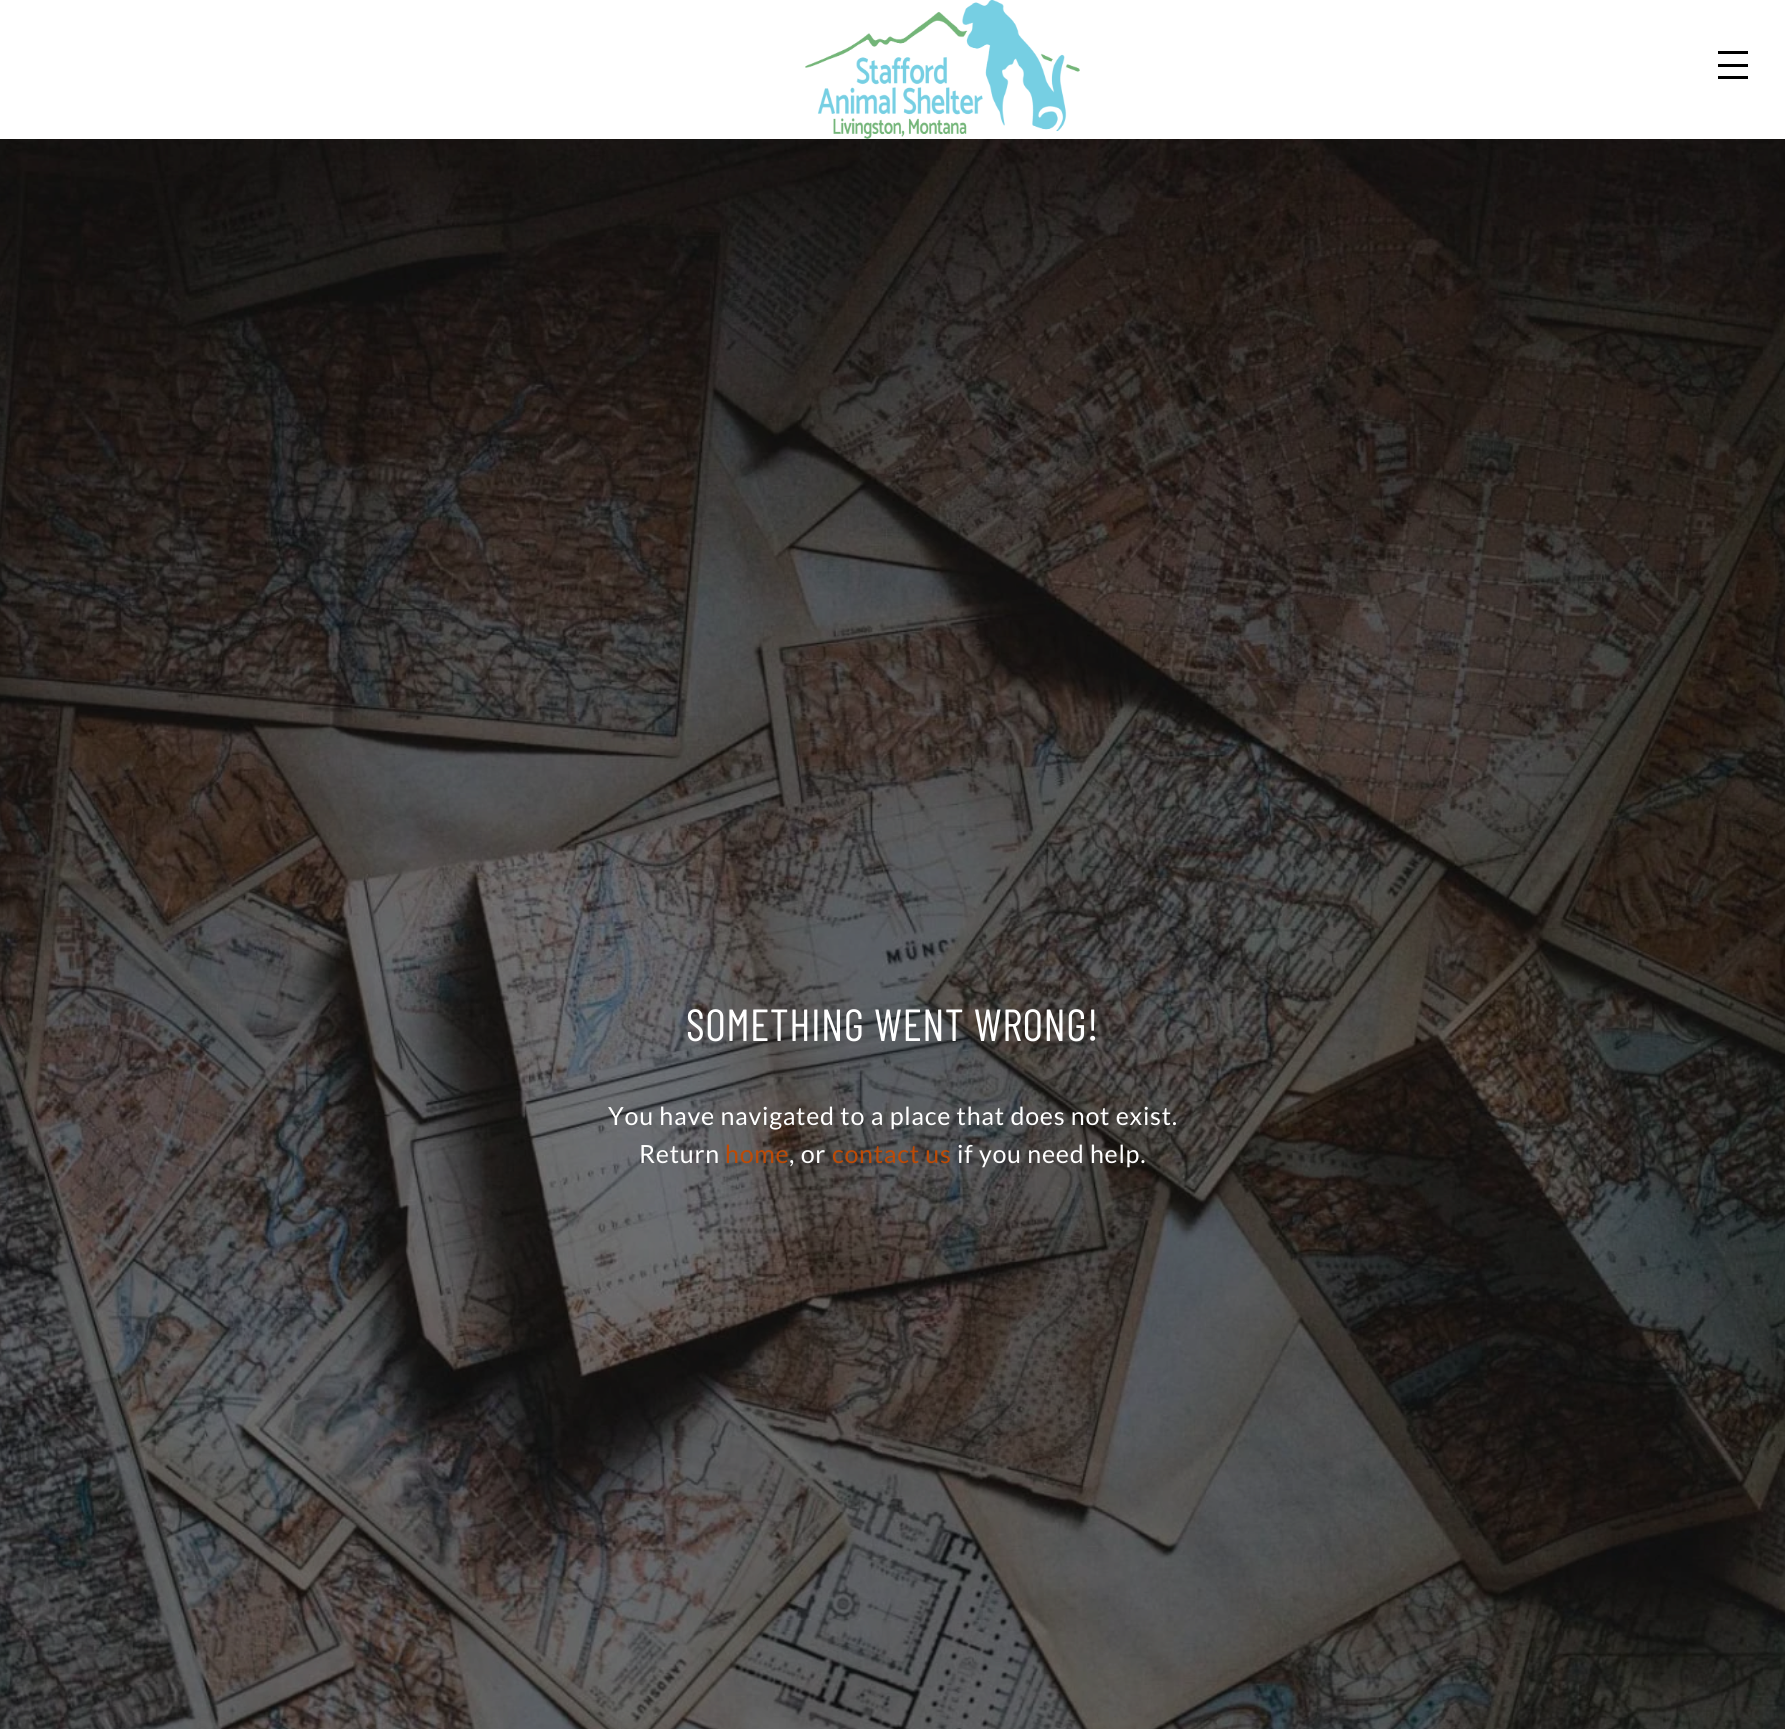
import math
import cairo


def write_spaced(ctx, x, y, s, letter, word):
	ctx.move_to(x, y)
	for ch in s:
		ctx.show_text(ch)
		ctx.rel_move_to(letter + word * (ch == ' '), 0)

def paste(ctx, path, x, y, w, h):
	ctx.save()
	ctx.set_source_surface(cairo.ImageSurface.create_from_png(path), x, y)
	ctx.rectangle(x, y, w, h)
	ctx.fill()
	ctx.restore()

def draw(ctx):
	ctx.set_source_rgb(1, 1, 1)
	ctx.paint()
	paste(ctx, 'media/1.png', 805, 0, 275, 139)
	ctx.set_source_rgb(0, 0, 0)
	ctx.rectangle(1718, 51, 30, 3)
	ctx.rectangle(1718, 64, 30, 3)
	ctx.rectangle(1718, 76, 30, 3)
	ctx.fill()
	paste(ctx, 'media/2.png', 0, 139, 1785, 1590)
	ctx.select_font_face('Barlow Condensed')
	ctx.set_font_size(45)
	ctx.set_source_rgb(1, 1, 1)
	write_spaced(ctx, 686, 1041, 'SOMETHING WENT WRONG!', 0.45, 0)
	ctx.select_font_face('Lato')
	ctx.set_font_size(25)
	write_spaced(ctx, 608, 1125, 'You have navigated to a place that does not exist.', 0.75, 0)
	write_spaced(ctx, 639, 1163, 'Return', 0.75, 0)
	ctx.set_source_rgb(0.741, 0.29, 0.02)
	write_spaced(ctx, 725, 1163, 'home', 0.75, 0)
	ctx.set_source_rgb(1, 1, 1)
	write_spaced(ctx, 789, 1163, ', or', 0.75, 0)
	ctx.set_source_rgb(0.741, 0.29, 0.02)
	write_spaced(ctx, 832, 1163, 'contact us', 0.75, 0)
	ctx.set_source_rgb(1, 1, 1)
	write_spaced(ctx, 957, 1163, 'if you need help.', 0.75, 0)


surface = cairo.ImageSurface(cairo.FORMAT_RGB24, 1785, 1729)
ctx = cairo.Context(surface)
options = cairo.FontOptions()
options.set_hint_metrics(cairo.HINT_METRICS_OFF)
options.set_hint_style(cairo.HINT_STYLE_NONE)
ctx.set_font_options(options)
ctx.set_miter_limit(4)
draw(ctx)
surface.write_to_png('image.png')
